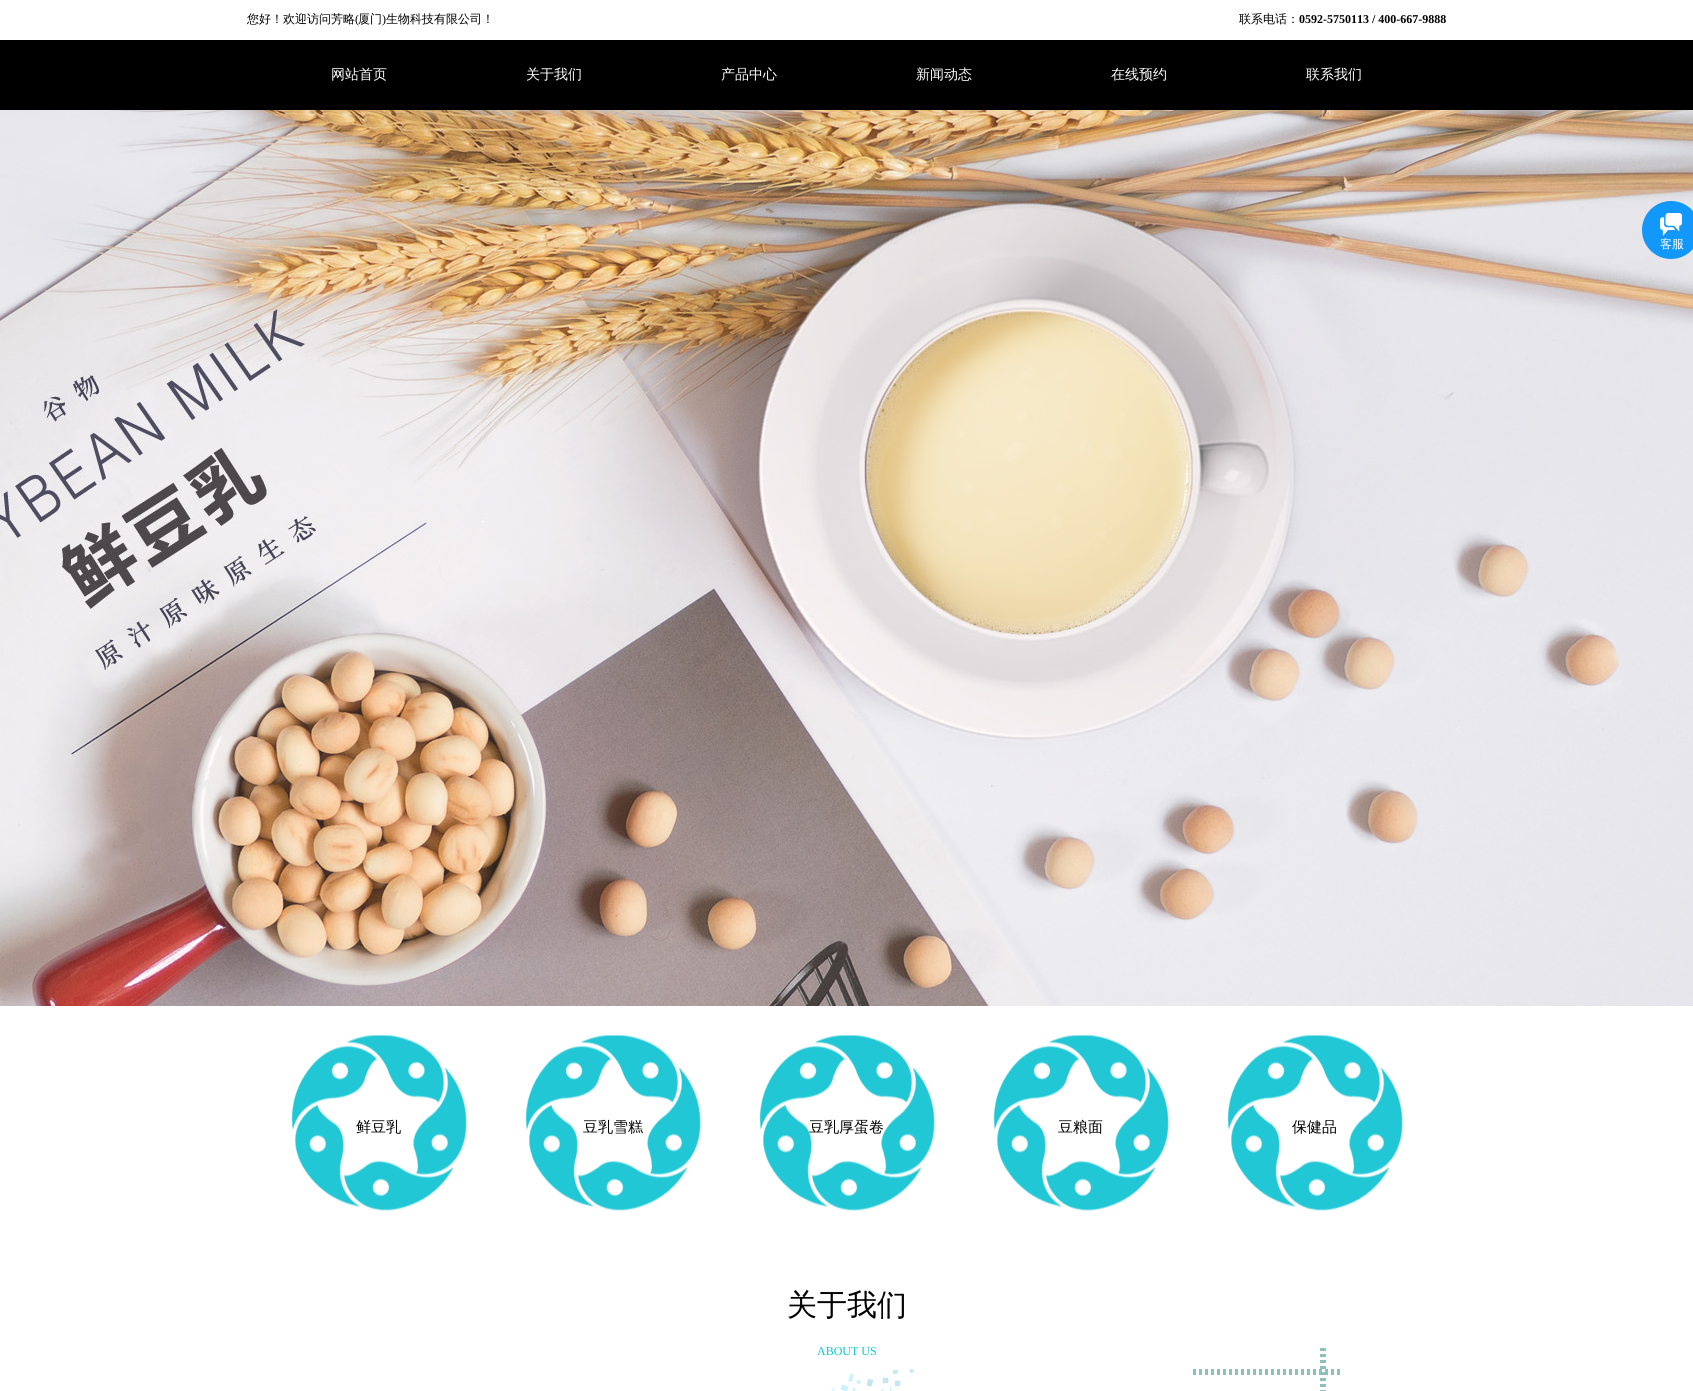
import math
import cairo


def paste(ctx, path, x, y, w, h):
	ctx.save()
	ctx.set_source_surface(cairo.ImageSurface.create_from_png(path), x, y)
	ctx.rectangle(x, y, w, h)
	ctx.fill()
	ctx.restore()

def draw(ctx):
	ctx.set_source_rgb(1, 1, 1)
	ctx.paint()
	ctx.select_font_face('WenQuanYi Zen Hei Medium')
	ctx.set_font_size(12)
	ctx.set_source_rgb(0, 0, 0)
	ctx.move_to(247, 23)
	ctx.show_text('您好！欢迎访问芳略')
	ctx.select_font_face('Liberation Serif')
	ctx.move_to(355, 23)
	ctx.show_text('(')
	ctx.select_font_face('WenQuanYi Zen Hei Medium')
	ctx.move_to(358, 23)
	ctx.show_text('厦门')
	ctx.select_font_face('Liberation Serif')
	ctx.move_to(382, 23)
	ctx.show_text(')')
	ctx.select_font_face('WenQuanYi Zen Hei Medium')
	ctx.move_to(386, 23)
	ctx.show_text('生物科技有限公司！')
	ctx.move_to(1239, 23)
	ctx.show_text('联系电话：')
	ctx.select_font_face('Liberation Serif', cairo.FONT_SLANT_NORMAL, cairo.FONT_WEIGHT_BOLD)
	ctx.move_to(1299, 23)
	ctx.show_text('0592-5750113 / 400-667-9888')
	ctx.rectangle(0, 40, 1693, 70)
	ctx.fill()
	ctx.select_font_face('WenQuanYi Zen Hei Medium')
	ctx.set_font_size(14)
	ctx.set_source_rgb(1, 1, 1)
	for x, y, s in [
		(331, 79, '网站首页'),
		(526, 79, '关于我们'),
		(721, 79, '产品中心'),
		(916, 79, '新闻动态'),
		(1111, 79, '在线预约'),
		(1306, 79, '联系我们'),
	]:
		ctx.move_to(x, y)
		ctx.show_text(s)
	paste(ctx, 'media/1.png', 0, 110, 1693, 896)
	paste(ctx, 'media/2.png', 291, 1035, 176, 176)
	ctx.set_font_size(15)
	ctx.set_source_rgb(0, 0, 0)
	ctx.move_to(356, 1132)
	ctx.show_text('鲜豆乳')
	paste(ctx, 'media/2.png', 525, 1035, 176, 176)
	ctx.move_to(583, 1132)
	ctx.show_text('豆乳雪糕')
	paste(ctx, 'media/2.png', 759, 1035, 176, 176)
	ctx.move_to(809, 1132)
	ctx.show_text('豆乳厚蛋卷')
	paste(ctx, 'media/2.png', 993, 1035, 176, 176)
	ctx.move_to(1058, 1132)
	ctx.show_text('豆粮面')
	paste(ctx, 'media/2.png', 1227, 1035, 176, 176)
	ctx.move_to(1292, 1132)
	ctx.show_text('保健品')
	ctx.set_font_size(30)
	ctx.move_to(787, 1315)
	ctx.show_text('关于我们')
	ctx.select_font_face('Liberation Serif')
	ctx.set_font_size(12)
	ctx.set_source_rgb(0.027, 0.784, 0.82)
	ctx.move_to(817, 1355)
	ctx.show_text('ABOUT US')
	paste(ctx, 'media/3.png', 831, 1369, 83, 22)
	ctx.new_path()
	ctx.move_to(1324.5, 1348)
	ctx.line_to(1324.5, 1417)
	ctx.move_to(1321.5, 1348)
	ctx.line_to(1321.5, 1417)
	ctx.set_source_rgb(0.549, 0.753, 0.729)
	ctx.set_line_width(3)
	ctx.set_dash([3, 3])
	ctx.stroke()
	ctx.new_path()
	ctx.move_to(1193, 1370.5)
	ctx.line_to(1343, 1370.5)
	ctx.stroke()
	ctx.new_path()
	ctx.move_to(1193, 1373.5)
	ctx.line_to(1343, 1373.5)
	ctx.stroke()
	paste(ctx, 'media/4.png', 1642, 201, 51, 58)
	ctx.select_font_face('WenQuanYi Zen Hei Medium')
	ctx.set_source_rgb(1, 1, 1)
	ctx.move_to(1660, 248)
	ctx.show_text('客服')


surface = cairo.ImageSurface(cairo.FORMAT_RGB24, 1693, 1391)
ctx = cairo.Context(surface)
options = cairo.FontOptions()
options.set_hint_metrics(cairo.HINT_METRICS_OFF)
options.set_hint_style(cairo.HINT_STYLE_NONE)
ctx.set_font_options(options)
ctx.set_miter_limit(4)
draw(ctx)
surface.write_to_png('image.png')
